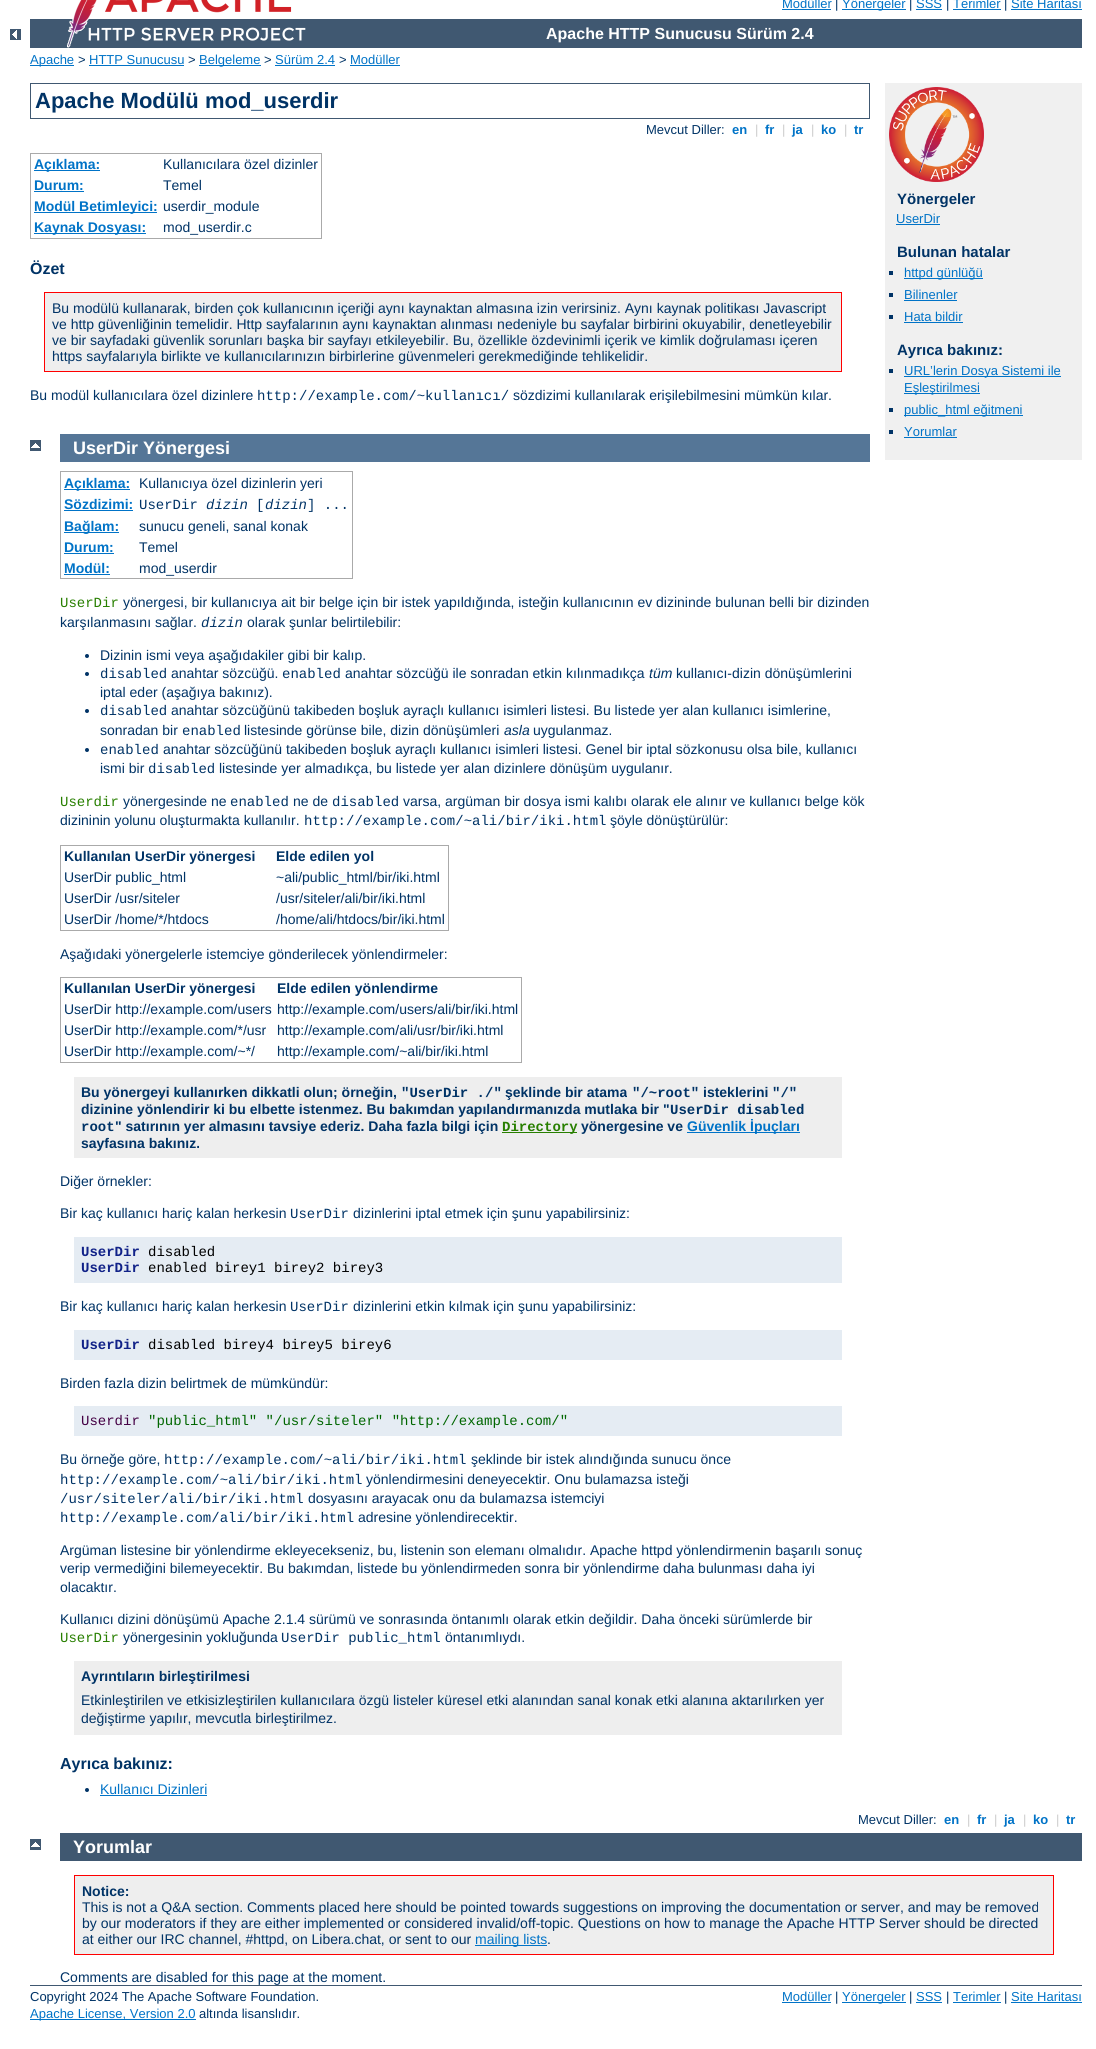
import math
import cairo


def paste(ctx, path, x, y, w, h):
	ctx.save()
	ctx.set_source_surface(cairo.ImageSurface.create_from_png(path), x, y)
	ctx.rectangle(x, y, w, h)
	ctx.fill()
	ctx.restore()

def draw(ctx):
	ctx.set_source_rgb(1, 1, 1)
	ctx.paint()
	paste(ctx, 'media/1.png', 10, 29, 11, 11)
	ctx.set_source_rgb(0.251, 0.345, 0.443)
	ctx.rectangle(30, 19, 1052, 29)
	ctx.fill()
	paste(ctx, 'media/2.png', 67, 0, 239, 48)
	ctx.select_font_face('Liberation Sans')
	ctx.set_font_size(13)
	ctx.set_source_rgb(0, 0.451, 0.78)
	ctx.move_to(782, 8)
	ctx.show_text('Modüller')
	ctx.rectangle(782, 9, 49, 1)
	ctx.fill()
	ctx.set_source_rgb(0, 0.2, 0.4)
	ctx.move_to(835, 8)
	ctx.show_text('|')
	ctx.set_source_rgb(0, 0.451, 0.78)
	ctx.rectangle(842, 9, 64, 1)
	ctx.fill()
	ctx.move_to(842, 8)
	ctx.show_text('Yönergeler')
	ctx.set_source_rgb(0, 0.2, 0.4)
	ctx.move_to(909, 8)
	ctx.show_text('|')
	ctx.set_source_rgb(0, 0.451, 0.78)
	ctx.move_to(916, 8)
	ctx.show_text('SSS')
	ctx.rectangle(916, 9, 26, 1)
	ctx.fill()
	ctx.set_source_rgb(0, 0.2, 0.4)
	ctx.move_to(946, 8)
	ctx.show_text('|')
	ctx.set_source_rgb(0, 0.451, 0.78)
	ctx.move_to(953, 8)
	ctx.show_text('Terimler')
	ctx.rectangle(953, 9, 48, 1)
	ctx.fill()
	ctx.set_source_rgb(0, 0.2, 0.4)
	ctx.move_to(1004, 8)
	ctx.show_text('|')
	ctx.set_source_rgb(0, 0.451, 0.78)
	ctx.move_to(1011, 8)
	ctx.show_text('Site Haritası')
	ctx.rectangle(1011, 9, 71, 1)
	ctx.fill()
	ctx.select_font_face('Liberation Sans', cairo.FONT_SLANT_NORMAL, cairo.FONT_WEIGHT_BOLD)
	ctx.set_font_size(16)
	ctx.set_source_rgb(1, 1, 1)
	ctx.move_to(546, 39)
	ctx.show_text('Apache HTTP Sunucusu Sürüm 2.4')
	ctx.set_source_rgb(0, 0.451, 0.78)
	ctx.rectangle(30, 65, 44, 1)
	ctx.fill()
	ctx.select_font_face('Liberation Sans')
	ctx.set_font_size(13)
	ctx.move_to(30, 64)
	ctx.show_text('Apache')
	ctx.set_source_rgb(0, 0.2, 0.4)
	ctx.move_to(78, 64)
	ctx.show_text('>')
	ctx.set_source_rgb(0, 0.451, 0.78)
	ctx.move_to(89, 64)
	ctx.show_text('HTTP Sunucusu')
	ctx.rectangle(89, 65, 95, 1)
	ctx.fill()
	ctx.set_source_rgb(0, 0.2, 0.4)
	ctx.move_to(188, 64)
	ctx.show_text('>')
	ctx.set_source_rgb(0, 0.451, 0.78)
	ctx.rectangle(199, 65, 62, 1)
	ctx.fill()
	ctx.move_to(199, 64)
	ctx.show_text('Belgeleme')
	ctx.set_source_rgb(0, 0.2, 0.4)
	ctx.move_to(264, 64)
	ctx.show_text('>')
	ctx.set_source_rgb(0, 0.451, 0.78)
	ctx.move_to(275, 64)
	ctx.show_text('Sürüm 2.4')
	ctx.rectangle(275, 65, 60, 1)
	ctx.fill()
	ctx.set_source_rgb(0, 0.2, 0.4)
	ctx.move_to(339, 64)
	ctx.show_text('>')
	ctx.set_source_rgb(0, 0.451, 0.78)
	ctx.move_to(350, 64)
	ctx.show_text('Modüller')
	ctx.rectangle(350, 65, 50, 1)
	ctx.fill()
	ctx.rectangle(30.5, 83.5, 839, 35)
	ctx.set_source_rgb(0.251, 0.345, 0.443)
	ctx.set_line_width(1)
	ctx.stroke()
	ctx.select_font_face('Liberation Sans', cairo.FONT_SLANT_NORMAL, cairo.FONT_WEIGHT_BOLD)
	ctx.set_font_size(22)
	ctx.set_source_rgb(0, 0.2, 0.4)
	ctx.move_to(35, 108)
	ctx.show_text('Apache Modülü mod_userdir')
	ctx.select_font_face('Liberation Sans')
	ctx.set_font_size(13)
	ctx.move_to(646, 134)
	ctx.show_text('Mevcut Diller:')
	ctx.select_font_face('Liberation Sans', cairo.FONT_SLANT_NORMAL, cairo.FONT_WEIGHT_BOLD)
	ctx.set_source_rgb(0, 0.451, 0.78)
	ctx.move_to(732, 134)
	ctx.show_text('en')
	ctx.select_font_face('Liberation Sans')
	ctx.set_source_rgb(0.8, 0.8, 0.8)
	ctx.move_to(755, 134)
	ctx.show_text('|')
	ctx.select_font_face('Liberation Sans', cairo.FONT_SLANT_NORMAL, cairo.FONT_WEIGHT_BOLD)
	ctx.set_source_rgb(0, 0.451, 0.78)
	ctx.move_to(765, 134)
	ctx.show_text('fr')
	ctx.select_font_face('Liberation Sans')
	ctx.set_source_rgb(0.8, 0.8, 0.8)
	ctx.move_to(782, 134)
	ctx.show_text('|')
	ctx.select_font_face('Liberation Sans', cairo.FONT_SLANT_NORMAL, cairo.FONT_WEIGHT_BOLD)
	ctx.set_source_rgb(0, 0.451, 0.78)
	ctx.move_to(792, 134)
	ctx.show_text('ja')
	ctx.select_font_face('Liberation Sans')
	ctx.set_source_rgb(0.8, 0.8, 0.8)
	ctx.move_to(811, 134)
	ctx.show_text('|')
	ctx.select_font_face('Liberation Sans', cairo.FONT_SLANT_NORMAL, cairo.FONT_WEIGHT_BOLD)
	ctx.set_source_rgb(0, 0.451, 0.78)
	ctx.move_to(821, 134)
	ctx.show_text('ko')
	ctx.select_font_face('Liberation Sans')
	ctx.set_source_rgb(0.8, 0.8, 0.8)
	ctx.move_to(844, 134)
	ctx.show_text('|')
	ctx.select_font_face('Liberation Sans', cairo.FONT_SLANT_NORMAL, cairo.FONT_WEIGHT_BOLD)
	ctx.set_source_rgb(0, 0.451, 0.78)
	ctx.move_to(854, 134)
	ctx.show_text('tr')
	ctx.set_source_rgb(0.667, 0.667, 0.667)
	ctx.rectangle(30, 153, 292, 1)
	ctx.rectangle(321, 153, 1, 86)
	ctx.rectangle(30, 238, 292, 1)
	ctx.rectangle(30, 153, 1, 86)
	ctx.fill()
	ctx.set_source_rgb(0, 0.451, 0.78)
	ctx.rectangle(34, 170, 66, 1)
	ctx.fill()
	ctx.set_font_size(14)
	ctx.move_to(34, 169)
	ctx.show_text('Açıklama:')
	ctx.select_font_face('Liberation Sans')
	ctx.set_source_rgb(0, 0.2, 0.4)
	ctx.move_to(163, 169)
	ctx.show_text('Kullanıcılara özel dizinler')
	ctx.select_font_face('Liberation Sans', cairo.FONT_SLANT_NORMAL, cairo.FONT_WEIGHT_BOLD)
	ctx.set_source_rgb(0, 0.451, 0.78)
	ctx.move_to(34, 190)
	ctx.show_text('Durum:')
	ctx.rectangle(34, 191, 50, 1)
	ctx.fill()
	ctx.select_font_face('Liberation Sans')
	ctx.set_source_rgb(0, 0.2, 0.4)
	ctx.move_to(163, 190)
	ctx.show_text('Temel')
	ctx.set_source_rgb(0, 0.451, 0.78)
	ctx.rectangle(34, 212, 123, 1)
	ctx.fill()
	ctx.select_font_face('Liberation Sans', cairo.FONT_SLANT_NORMAL, cairo.FONT_WEIGHT_BOLD)
	ctx.move_to(34, 211)
	ctx.show_text('Modül Betimleyici:')
	ctx.select_font_face('Liberation Sans')
	ctx.set_source_rgb(0, 0.2, 0.4)
	ctx.move_to(163, 211)
	ctx.show_text('userdir_module')
	ctx.set_source_rgb(0, 0.451, 0.78)
	ctx.rectangle(34, 233, 112, 1)
	ctx.fill()
	ctx.select_font_face('Liberation Sans', cairo.FONT_SLANT_NORMAL, cairo.FONT_WEIGHT_BOLD)
	ctx.move_to(34, 232)
	ctx.show_text('Kaynak Dosyası:')
	ctx.select_font_face('Liberation Sans')
	ctx.set_source_rgb(0, 0.2, 0.4)
	ctx.move_to(163, 232)
	ctx.show_text('mod_userdir.c')
	ctx.select_font_face('Liberation Sans', cairo.FONT_SLANT_NORMAL, cairo.FONT_WEIGHT_BOLD)
	ctx.set_font_size(16)
	ctx.move_to(30, 274)
	ctx.show_text('Özet')
	ctx.set_source_rgb(0.933, 0.933, 0.933)
	ctx.rectangle(44.5, 292.5, 797, 79)
	ctx.fill_preserve()
	ctx.set_source_rgb(1, 0, 0)
	ctx.stroke()
	ctx.select_font_face('Liberation Sans')
	ctx.set_font_size(14)
	ctx.set_source_rgb(0, 0.2, 0.4)
	for x, y, s in [
		(52, 313, 'Bu modülü kullanarak, birden çok kullanıcının içeriği aynı kaynaktan almasına izin verirsiniz. Aynı kaynak politikası Javascript'),
		(52, 329, 've http güvenliğinin temelidir. Http sayfalarının aynı kaynaktan alınması nedeniyle bu sayfalar birbirini okuyabilir, denetleyebilir'),
		(52, 345, 've bir sayfadaki güvenlik sorunları başka bir sayfayı etkileyebilir. Bu, özellikle özdevinimli içerik ve kimlik doğrulaması içeren'),
		(52, 361, 'https sayfalarıyla birlikte ve kullanıcılarınızın birbirlerine güvenmeleri gerekmediğinde tehlikelidir.'),
		(30, 400, 'Bu modül kullanıcılara özel dizinlere'),
	]:
		ctx.move_to(x, y)
		ctx.show_text(s)
	ctx.select_font_face('Liberation Mono')
	ctx.move_to(257, 400)
	ctx.show_text('http://example.com/~kullanıcı/')
	ctx.select_font_face('Liberation Sans')
	ctx.move_to(513, 400)
	ctx.show_text('sözdizimi kullanılarak erişilebilmesini mümkün kılar.')
	ctx.set_source_rgb(0.941, 0.941, 0.941)
	ctx.rectangle(885, 83, 197, 377)
	ctx.fill()
	paste(ctx, 'media/3.png', 889, 87, 95, 95)
	ctx.select_font_face('Liberation Sans', cairo.FONT_SLANT_NORMAL, cairo.FONT_WEIGHT_BOLD)
	ctx.set_font_size(15)
	ctx.set_source_rgb(0, 0.2, 0.4)
	ctx.move_to(897, 204)
	ctx.show_text('Yönergeler')
	ctx.select_font_face('Liberation Sans')
	ctx.set_font_size(13)
	ctx.set_source_rgb(0, 0.451, 0.78)
	ctx.move_to(896, 223)
	ctx.show_text('UserDir')
	ctx.rectangle(896, 224, 44, 1)
	ctx.fill()
	ctx.select_font_face('Liberation Sans', cairo.FONT_SLANT_NORMAL, cairo.FONT_WEIGHT_BOLD)
	ctx.set_font_size(15)
	ctx.set_source_rgb(0, 0.2, 0.4)
	ctx.move_to(897, 257)
	ctx.show_text('Bulunan hatalar')
	ctx.rectangle(889, 271, 4, 4)
	ctx.fill()
	ctx.set_source_rgb(0, 0.451, 0.78)
	ctx.rectangle(904, 278, 79, 1)
	ctx.fill()
	ctx.select_font_face('Liberation Sans')
	ctx.set_font_size(13)
	ctx.move_to(904, 277)
	ctx.show_text('httpd günlüğü')
	ctx.set_source_rgb(0, 0.2, 0.4)
	ctx.rectangle(889, 293, 4, 4)
	ctx.fill()
	ctx.set_source_rgb(0, 0.451, 0.78)
	ctx.move_to(904, 299)
	ctx.show_text('Bilinenler')
	ctx.rectangle(904, 300, 53, 1)
	ctx.fill()
	ctx.set_source_rgb(0, 0.2, 0.4)
	ctx.rectangle(889, 315, 4, 4)
	ctx.fill()
	ctx.set_source_rgb(0, 0.451, 0.78)
	ctx.move_to(904, 321)
	ctx.show_text('Hata bildir')
	ctx.rectangle(904, 322, 59, 1)
	ctx.fill()
	ctx.select_font_face('Liberation Sans', cairo.FONT_SLANT_NORMAL, cairo.FONT_WEIGHT_BOLD)
	ctx.set_font_size(15)
	ctx.set_source_rgb(0, 0.2, 0.4)
	ctx.move_to(897, 355)
	ctx.show_text('Ayrıca bakınız:')
	ctx.rectangle(889, 369, 4, 4)
	ctx.fill()
	ctx.set_source_rgb(0, 0.451, 0.78)
	ctx.rectangle(904, 376, 157, 1)
	ctx.fill()
	ctx.select_font_face('Liberation Sans')
	ctx.set_font_size(13)
	ctx.move_to(904, 375)
	ctx.show_text('URL’lerin Dosya Sistemi ile')
	ctx.rectangle(904, 393, 76, 1)
	ctx.fill()
	ctx.move_to(904, 392)
	ctx.show_text('Eşleştirilmesi')
	ctx.set_source_rgb(0, 0.2, 0.4)
	ctx.rectangle(889, 408, 4, 4)
	ctx.fill()
	ctx.set_source_rgb(0, 0.451, 0.78)
	ctx.rectangle(904, 415, 119, 1)
	ctx.fill()
	ctx.move_to(904, 414)
	ctx.show_text('public_html eğitmeni')
	ctx.set_source_rgb(0, 0.2, 0.4)
	ctx.rectangle(889, 430, 4, 4)
	ctx.fill()
	ctx.set_source_rgb(0, 0.451, 0.78)
	ctx.move_to(904, 436)
	ctx.show_text('Yorumlar')
	ctx.rectangle(904, 437, 53, 1)
	ctx.fill()
	paste(ctx, 'media/4.png', 30, 440, 11, 11)
	ctx.set_source_rgb(0.333, 0.463, 0.592)
	ctx.rectangle(60, 434, 810, 28)
	ctx.fill()
	ctx.select_font_face('Liberation Sans', cairo.FONT_SLANT_NORMAL, cairo.FONT_WEIGHT_BOLD)
	ctx.set_font_size(18)
	ctx.set_source_rgb(1, 1, 1)
	ctx.move_to(73, 454)
	ctx.show_text('UserDir Yönergesi')
	ctx.set_source_rgb(0.667, 0.667, 0.667)
	ctx.rectangle(60, 471, 293, 1)
	ctx.rectangle(352, 471, 1, 108)
	ctx.rectangle(60, 578, 293, 1)
	ctx.rectangle(60, 471, 1, 108)
	ctx.fill()
	ctx.set_source_rgb(0, 0.451, 0.78)
	ctx.rectangle(64, 489, 66, 1)
	ctx.fill()
	ctx.set_font_size(14)
	ctx.move_to(64, 488)
	ctx.show_text('Açıklama:')
	ctx.select_font_face('Liberation Sans')
	ctx.set_source_rgb(0, 0.2, 0.4)
	ctx.move_to(139, 488)
	ctx.show_text('Kullanıcıya özel dizinlerin yeri')
	ctx.select_font_face('Liberation Sans', cairo.FONT_SLANT_NORMAL, cairo.FONT_WEIGHT_BOLD)
	ctx.set_source_rgb(0, 0.451, 0.78)
	ctx.move_to(64, 509)
	ctx.show_text('Sözdizimi:')
	ctx.rectangle(64, 510, 69, 1)
	ctx.fill()
	ctx.select_font_face('Liberation Mono')
	ctx.set_source_rgb(0, 0.2, 0.4)
	ctx.move_to(139, 509)
	ctx.show_text('UserDir')
	ctx.select_font_face('Liberation Mono', cairo.FONT_SLANT_ITALIC)
	ctx.move_to(206, 509)
	ctx.show_text('dizin')
	ctx.select_font_face('Liberation Mono')
	ctx.move_to(256, 509)
	ctx.show_text('[')
	ctx.select_font_face('Liberation Mono', cairo.FONT_SLANT_ITALIC)
	ctx.move_to(265, 509)
	ctx.show_text('dizin')
	ctx.select_font_face('Liberation Mono')
	ctx.move_to(307, 509)
	ctx.show_text('] ...')
	ctx.set_source_rgb(0, 0.451, 0.78)
	ctx.rectangle(64, 532, 55, 1)
	ctx.fill()
	ctx.select_font_face('Liberation Sans', cairo.FONT_SLANT_NORMAL, cairo.FONT_WEIGHT_BOLD)
	ctx.move_to(64, 531)
	ctx.show_text('Bağlam:')
	ctx.select_font_face('Liberation Sans')
	ctx.set_source_rgb(0, 0.2, 0.4)
	ctx.move_to(139, 531)
	ctx.show_text('sunucu geneli, sanal konak')
	ctx.select_font_face('Liberation Sans', cairo.FONT_SLANT_NORMAL, cairo.FONT_WEIGHT_BOLD)
	ctx.set_source_rgb(0, 0.451, 0.78)
	ctx.move_to(64, 552)
	ctx.show_text('Durum:')
	ctx.rectangle(64, 553, 50, 1)
	ctx.fill()
	ctx.select_font_face('Liberation Sans')
	ctx.set_source_rgb(0, 0.2, 0.4)
	ctx.move_to(139, 552)
	ctx.show_text('Temel')
	ctx.select_font_face('Liberation Sans', cairo.FONT_SLANT_NORMAL, cairo.FONT_WEIGHT_BOLD)
	ctx.set_source_rgb(0, 0.451, 0.78)
	ctx.move_to(64, 573)
	ctx.show_text('Modül:')
	ctx.rectangle(64, 574, 46, 1)
	ctx.fill()
	ctx.select_font_face('Liberation Sans')
	ctx.set_source_rgb(0, 0.2, 0.4)
	ctx.move_to(139, 573)
	ctx.show_text('mod_userdir')
	ctx.select_font_face('Liberation Mono')
	ctx.set_source_rgb(0.157, 0.498, 0)
	ctx.move_to(60, 607)
	ctx.show_text('UserDir')
	ctx.select_font_face('Liberation Sans')
	ctx.set_source_rgb(0, 0.2, 0.4)
	ctx.move_to(123, 607)
	ctx.show_text('yönergesi, bir kullanıcıya ait bir belge için bir istek yapıldığında, isteğin kullanıcının ev dizininde bulunan belli bir dizinden')
	ctx.move_to(60, 627)
	ctx.show_text('karşılanmasını sağlar.')
	ctx.select_font_face('Liberation Mono', cairo.FONT_SLANT_ITALIC)
	ctx.move_to(201, 627)
	ctx.show_text('dizin')
	ctx.select_font_face('Liberation Sans')
	ctx.move_to(247, 627)
	ctx.show_text('olarak şunlar belirtilebilir:')
	ctx.new_path()
	ctx.arc(87, 656, 2, 0, 2 * math.pi)
	ctx.fill()
	ctx.move_to(100, 660)
	ctx.show_text('Dizinin ismi veya aşağıdakiler gibi bir kalıp.')
	ctx.new_path()
	ctx.arc(87, 674, 2, 0, 2 * math.pi)
	ctx.fill()
	ctx.select_font_face('Liberation Mono')
	ctx.move_to(100, 678)
	ctx.show_text('disabled')
	ctx.select_font_face('Liberation Sans')
	ctx.move_to(171, 678)
	ctx.show_text('anahtar sözcüğü.')
	ctx.select_font_face('Liberation Mono')
	ctx.move_to(282, 678)
	ctx.show_text('enabled')
	ctx.select_font_face('Liberation Sans')
	ctx.move_to(345, 678)
	ctx.show_text('anahtar sözcüğü ile sonradan etkin kılınmadıkça')
	ctx.select_font_face('Liberation Sans', cairo.FONT_SLANT_ITALIC)
	ctx.move_to(649, 678)
	ctx.show_text('tüm')
	ctx.select_font_face('Liberation Sans')
	ctx.move_to(676, 678)
	ctx.show_text('kullanıcı-dizin dönüşümlerini')
	ctx.move_to(100, 697)
	ctx.show_text('iptal eder (aşağıya bakınız).')
	ctx.new_path()
	ctx.arc(87, 711, 2, 0, 2 * math.pi)
	ctx.fill()
	ctx.select_font_face('Liberation Mono')
	ctx.move_to(100, 715)
	ctx.show_text('disabled')
	ctx.select_font_face('Liberation Sans')
	ctx.move_to(171, 715)
	ctx.show_text('anahtar sözcüğünü takibeden boşluk ayraçlı kullanıcı isimleri listesi. Bu listede yer alan kullanıcı isimlerine,')
	ctx.move_to(100, 735)
	ctx.show_text('sonradan bir')
	ctx.select_font_face('Liberation Mono')
	ctx.move_to(182, 735)
	ctx.show_text('enabled')
	ctx.select_font_face('Liberation Sans')
	ctx.move_to(244, 735)
	ctx.show_text('listesinde görünse bile, dizin dönüşümleri')
	ctx.select_font_face('Liberation Sans', cairo.FONT_SLANT_ITALIC)
	ctx.move_to(504, 735)
	ctx.show_text('asla')
	ctx.select_font_face('Liberation Sans')
	ctx.move_to(533, 735)
	ctx.show_text('uygulanmaz.')
	ctx.new_path()
	ctx.arc(87, 750, 2, 0, 2 * math.pi)
	ctx.fill()
	ctx.select_font_face('Liberation Mono')
	ctx.move_to(100, 754)
	ctx.show_text('enabled')
	ctx.select_font_face('Liberation Sans')
	ctx.move_to(163, 754)
	ctx.show_text('anahtar sözcüğünü takibeden boşluk ayraçlı kullanıcı isimleri listesi. Genel bir iptal sözkonusu olsa bile, kullanıcı')
	ctx.move_to(100, 773)
	ctx.show_text('ismi bir')
	ctx.select_font_face('Liberation Mono')
	ctx.move_to(148, 773)
	ctx.show_text('disabled')
	ctx.select_font_face('Liberation Sans')
	ctx.move_to(219, 773)
	ctx.show_text('listesinde yer almadıkça, bu listede yer alan dizinlere dönüşüm uygulanır.')
	ctx.select_font_face('Liberation Mono')
	ctx.set_source_rgb(0.157, 0.498, 0)
	ctx.move_to(60, 806)
	ctx.show_text('Userdir')
	ctx.select_font_face('Liberation Sans')
	ctx.set_source_rgb(0, 0.2, 0.4)
	ctx.move_to(123, 806)
	ctx.show_text('yönergesinde ne')
	ctx.select_font_face('Liberation Mono')
	ctx.move_to(230, 806)
	ctx.show_text('enabled')
	ctx.select_font_face('Liberation Sans')
	ctx.move_to(293, 806)
	ctx.show_text('ne de')
	ctx.select_font_face('Liberation Mono')
	ctx.move_to(332, 806)
	ctx.show_text('disabled')
	ctx.select_font_face('Liberation Sans')
	ctx.move_to(403, 806)
	ctx.show_text('varsa, argüman bir dosya ismi kalıbı olarak ele alınır ve kullanıcı belge kök')
	ctx.move_to(60, 825)
	ctx.show_text('dizininin yolunu oluşturmakta kullanılır.')
	ctx.select_font_face('Liberation Mono')
	ctx.move_to(304, 825)
	ctx.show_text('http://example.com/~ali/bir/iki.html')
	ctx.select_font_face('Liberation Sans')
	ctx.move_to(610, 825)
	ctx.show_text('şöyle dönüştürülür:')
	ctx.set_source_rgb(0.667, 0.667, 0.667)
	ctx.rectangle(60, 845, 389, 1)
	ctx.rectangle(448, 845, 1, 86)
	ctx.rectangle(60, 930, 389, 1)
	ctx.rectangle(60, 845, 1, 86)
	ctx.fill()
	ctx.select_font_face('Liberation Sans', cairo.FONT_SLANT_NORMAL, cairo.FONT_WEIGHT_BOLD)
	ctx.set_source_rgb(0, 0.2, 0.4)
	ctx.move_to(64, 861)
	ctx.show_text('Kullanılan UserDir yönergesi')
	ctx.move_to(276, 861)
	ctx.show_text('Elde edilen yol')
	ctx.select_font_face('Liberation Sans')
	for x, y, s in [
		(64, 882, 'UserDir public_html'),
		(276, 882, '~ali/public_html/bir/iki.html'),
		(64, 903, 'UserDir /usr/siteler'),
		(276, 903, '/usr/siteler/ali/bir/iki.html'),
		(64, 924, 'UserDir /home/*/htdocs'),
		(276, 924, '/home/ali/htdocs/bir/iki.html'),
		(60, 959, 'Aşağıdaki yönergelerle istemciye gönderilecek yönlendirmeler:'),
	]:
		ctx.move_to(x, y)
		ctx.show_text(s)
	ctx.set_source_rgb(0.667, 0.667, 0.667)
	ctx.rectangle(60, 977, 462, 1)
	ctx.rectangle(521, 977, 1, 86)
	ctx.rectangle(60, 1062, 462, 1)
	ctx.rectangle(60, 977, 1, 86)
	ctx.fill()
	ctx.select_font_face('Liberation Sans', cairo.FONT_SLANT_NORMAL, cairo.FONT_WEIGHT_BOLD)
	ctx.set_source_rgb(0, 0.2, 0.4)
	ctx.move_to(64, 993)
	ctx.show_text('Kullanılan UserDir yönergesi')
	ctx.move_to(277, 993)
	ctx.show_text('Elde edilen yönlendirme')
	ctx.select_font_face('Liberation Sans')
	for x, y, s in [
		(64, 1014, 'UserDir http://example.com/users'),
		(277, 1014, 'http://example.com/users/ali/bir/iki.html'),
		(64, 1035, 'UserDir http://example.com/*/usr'),
		(277, 1035, 'http://example.com/ali/usr/bir/iki.html'),
		(64, 1056, 'UserDir http://example.com/~*/'),
		(277, 1056, 'http://example.com/~ali/bir/iki.html'),
	]:
		ctx.move_to(x, y)
		ctx.show_text(s)
	ctx.set_source_rgb(0.933, 0.933, 0.933)
	ctx.rectangle(74, 1077, 768, 81)
	ctx.fill()
	ctx.select_font_face('Liberation Sans', cairo.FONT_SLANT_NORMAL, cairo.FONT_WEIGHT_BOLD)
	ctx.set_source_rgb(0, 0.2, 0.4)
	ctx.move_to(81, 1097)
	ctx.show_text('Bu yönergeyi kullanırken dikkatli olun; örneğin,')
	ctx.select_font_face('Liberation Mono', cairo.FONT_SLANT_NORMAL, cairo.FONT_WEIGHT_BOLD)
	ctx.move_to(401, 1097)
	ctx.show_text('"UserDir ./"')
	ctx.select_font_face('Liberation Sans', cairo.FONT_SLANT_NORMAL, cairo.FONT_WEIGHT_BOLD)
	ctx.move_to(505, 1097)
	ctx.show_text('şeklinde bir atama')
	ctx.select_font_face('Liberation Mono', cairo.FONT_SLANT_NORMAL, cairo.FONT_WEIGHT_BOLD)
	ctx.move_to(632, 1097)
	ctx.show_text('"/~root"')
	ctx.select_font_face('Liberation Sans', cairo.FONT_SLANT_NORMAL, cairo.FONT_WEIGHT_BOLD)
	ctx.move_to(703, 1097)
	ctx.show_text('isteklerini')
	ctx.select_font_face('Liberation Mono', cairo.FONT_SLANT_NORMAL, cairo.FONT_WEIGHT_BOLD)
	ctx.move_to(772, 1097)
	ctx.show_text('"/"')
	ctx.select_font_face('Liberation Sans', cairo.FONT_SLANT_NORMAL, cairo.FONT_WEIGHT_BOLD)
	ctx.move_to(81, 1114)
	ctx.show_text('dizinine yönlendirir ki bu elbette istenmez. Bu bakımdan yapılandırmanızda mutlaka bir "')
	ctx.select_font_face('Liberation Mono', cairo.FONT_SLANT_NORMAL, cairo.FONT_WEIGHT_BOLD)
	ctx.move_to(670, 1114)
	ctx.show_text('UserDir disabled')
	ctx.move_to(81, 1131)
	ctx.show_text('root')
	ctx.select_font_face('Liberation Sans', cairo.FONT_SLANT_NORMAL, cairo.FONT_WEIGHT_BOLD)
	ctx.move_to(115, 1131)
	ctx.show_text('" satırının yer almasını tavsiye ederiz. Daha fazla bilgi için')
	ctx.set_source_rgb(0.157, 0.498, 0)
	ctx.rectangle(502, 1132, 75, 1)
	ctx.fill()
	ctx.select_font_face('Liberation Mono', cairo.FONT_SLANT_NORMAL, cairo.FONT_WEIGHT_BOLD)
	ctx.move_to(502, 1131)
	ctx.show_text('Directory')
	ctx.select_font_face('Liberation Sans', cairo.FONT_SLANT_NORMAL, cairo.FONT_WEIGHT_BOLD)
	ctx.set_source_rgb(0, 0.2, 0.4)
	ctx.move_to(581, 1131)
	ctx.show_text('yönergesine ve')
	ctx.set_source_rgb(0, 0.451, 0.78)
	ctx.rectangle(687, 1132, 113, 1)
	ctx.fill()
	ctx.move_to(687, 1131)
	ctx.show_text('Güvenlik İpuçları')
	ctx.set_source_rgb(0, 0.2, 0.4)
	ctx.move_to(81, 1148)
	ctx.show_text('sayfasına bakınız.')
	ctx.select_font_face('Liberation Sans')
	ctx.move_to(60, 1186)
	ctx.show_text('Diğer örnekler:')
	ctx.move_to(60, 1218)
	ctx.show_text('Bir kaç kullanıcı hariç kalan herkesin')
	ctx.select_font_face('Liberation Mono')
	ctx.move_to(290, 1218)
	ctx.show_text('UserDir')
	ctx.select_font_face('Liberation Sans')
	ctx.move_to(353, 1218)
	ctx.show_text('dizinlerini iptal etmek için şunu yapabilirsiniz:')
	ctx.set_source_rgb(0.898, 0.925, 0.953)
	ctx.rectangle(74, 1237, 768, 46)
	ctx.fill()
	ctx.select_font_face('Liberation Mono', cairo.FONT_SLANT_NORMAL, cairo.FONT_WEIGHT_BOLD)
	ctx.set_source_rgb(0.067, 0.133, 0.533)
	ctx.move_to(81, 1256)
	ctx.show_text('UserDir')
	ctx.select_font_face('Liberation Mono')
	ctx.set_source_rgb(0, 0, 0)
	ctx.move_to(148, 1256)
	ctx.show_text('disabled')
	ctx.select_font_face('Liberation Mono', cairo.FONT_SLANT_NORMAL, cairo.FONT_WEIGHT_BOLD)
	ctx.set_source_rgb(0.067, 0.133, 0.533)
	ctx.move_to(81, 1272)
	ctx.show_text('UserDir')
	ctx.select_font_face('Liberation Mono')
	ctx.set_source_rgb(0, 0, 0)
	ctx.move_to(148, 1272)
	ctx.show_text('enabled birey1 birey2 birey3')
	ctx.select_font_face('Liberation Sans')
	ctx.set_source_rgb(0, 0.2, 0.4)
	ctx.move_to(60, 1311)
	ctx.show_text('Bir kaç kullanıcı hariç kalan herkesin')
	ctx.select_font_face('Liberation Mono')
	ctx.move_to(290, 1311)
	ctx.show_text('UserDir')
	ctx.select_font_face('Liberation Sans')
	ctx.move_to(353, 1311)
	ctx.show_text('dizinlerini etkin kılmak için şunu yapabilirsiniz:')
	ctx.set_source_rgb(0.898, 0.925, 0.953)
	ctx.rectangle(74, 1330, 768, 30)
	ctx.fill()
	ctx.select_font_face('Liberation Mono', cairo.FONT_SLANT_NORMAL, cairo.FONT_WEIGHT_BOLD)
	ctx.set_source_rgb(0.067, 0.133, 0.533)
	ctx.move_to(81, 1349)
	ctx.show_text('UserDir')
	ctx.select_font_face('Liberation Mono')
	ctx.set_source_rgb(0, 0, 0)
	ctx.move_to(148, 1349)
	ctx.show_text('disabled birey4 birey5 birey6')
	ctx.select_font_face('Liberation Sans')
	ctx.set_source_rgb(0, 0.2, 0.4)
	ctx.move_to(60, 1388)
	ctx.show_text('Birden fazla dizin belirtmek de mümkündür:')
	ctx.set_source_rgb(0.898, 0.925, 0.953)
	ctx.rectangle(74, 1406, 768, 30)
	ctx.fill()
	ctx.select_font_face('Liberation Mono')
	ctx.set_source_rgb(0.267, 0, 0.267)
	ctx.move_to(81, 1425)
	ctx.show_text('Userdir')
	ctx.set_source_rgb(0, 0.4, 0)
	ctx.move_to(148, 1425)
	ctx.show_text('"public_html" "/usr/siteler" "http://example.com/"')
	ctx.select_font_face('Liberation Sans')
	ctx.set_source_rgb(0, 0.2, 0.4)
	ctx.move_to(60, 1464)
	ctx.show_text('Bu örneğe göre,')
	ctx.select_font_face('Liberation Mono')
	ctx.move_to(164, 1464)
	ctx.show_text('http://example.com/~ali/bir/iki.html')
	ctx.select_font_face('Liberation Sans')
	ctx.move_to(471, 1464)
	ctx.show_text('şeklinde bir istek alındığında sunucu önce')
	ctx.select_font_face('Liberation Mono')
	ctx.move_to(60, 1484)
	ctx.show_text('http://example.com/~ali/bir/iki.html')
	ctx.select_font_face('Liberation Sans')
	ctx.move_to(366, 1484)
	ctx.show_text('yönlendirmesini deneyecektir. Onu bulamazsa isteği')
	ctx.select_font_face('Liberation Mono')
	ctx.move_to(60, 1503)
	ctx.show_text('/usr/siteler/ali/bir/iki.html')
	ctx.select_font_face('Liberation Sans')
	ctx.move_to(308, 1503)
	ctx.show_text('dosyasını arayacak onu da bulamazsa istemciyi')
	ctx.select_font_face('Liberation Mono')
	ctx.move_to(60, 1522)
	ctx.show_text('http://example.com/ali/bir/iki.html')
	ctx.select_font_face('Liberation Sans')
	for x, y, s in [
		(358, 1522, 'adresine yönlendirecektir.'),
		(60, 1555, 'Argüman listesine bir yönlendirme ekleyecekseniz, bu, listenin son elemanı olmalıdır. Apache httpd yönlendirmenin başarılı sonuç'),
		(60, 1573, 'verip vermediğini bilemeyecektir. Bu bakımdan, listede bu yönlendirmeden sonra bir yönlendirme daha bulunması daha iyi'),
		(60, 1592, 'olacaktır.'),
		(60, 1624, 'Kullanıcı dizini dönüşümü Apache 2.1.4 sürümü ve sonrasında öntanımlı olarak etkin değildir. Daha önceki sürümlerde bir'),
	]:
		ctx.move_to(x, y)
		ctx.show_text(s)
	ctx.select_font_face('Liberation Mono')
	ctx.set_source_rgb(0.157, 0.498, 0)
	ctx.move_to(60, 1642)
	ctx.show_text('UserDir')
	ctx.select_font_face('Liberation Sans')
	ctx.set_source_rgb(0, 0.2, 0.4)
	ctx.move_to(123, 1642)
	ctx.show_text('yönergesinin yokluğunda')
	ctx.select_font_face('Liberation Mono')
	ctx.move_to(281, 1642)
	ctx.show_text('UserDir public_html')
	ctx.select_font_face('Liberation Sans')
	ctx.move_to(445, 1642)
	ctx.show_text('öntanımlıydı.')
	ctx.set_source_rgb(0.933, 0.933, 0.933)
	ctx.rectangle(74, 1661, 768, 74)
	ctx.fill()
	ctx.select_font_face('Liberation Sans', cairo.FONT_SLANT_NORMAL, cairo.FONT_WEIGHT_BOLD)
	ctx.set_source_rgb(0, 0.2, 0.4)
	ctx.move_to(81, 1681)
	ctx.show_text('Ayrıntıların birleştirilmesi')
	ctx.select_font_face('Liberation Sans')
	ctx.move_to(81, 1705)
	ctx.show_text('Etkinleştirilen ve etkisizleştirilen kullanıcılara özgü listeler küresel etki alanından sanal konak etki alanına aktarılırken yer')
	ctx.move_to(81, 1723)
	ctx.show_text('değiştirme yapılır, mevcutla birleştirilmez.')
	ctx.select_font_face('Liberation Sans', cairo.FONT_SLANT_NORMAL, cairo.FONT_WEIGHT_BOLD)
	ctx.set_font_size(16)
	ctx.move_to(60, 1769)
	ctx.show_text('Ayrıca bakınız:')
	ctx.new_path()
	ctx.arc(87, 1790, 2, 0, 2 * math.pi)
	ctx.fill()
	ctx.select_font_face('Liberation Sans')
	ctx.set_font_size(14)
	ctx.set_source_rgb(0, 0.451, 0.78)
	ctx.move_to(100, 1794)
	ctx.show_text('Kullanıcı Dizinleri')
	ctx.rectangle(100, 1795, 107, 1)
	ctx.fill()
	ctx.set_font_size(13)
	ctx.set_source_rgb(0, 0.2, 0.4)
	ctx.move_to(858, 1824)
	ctx.show_text('Mevcut Diller:')
	ctx.select_font_face('Liberation Sans', cairo.FONT_SLANT_NORMAL, cairo.FONT_WEIGHT_BOLD)
	ctx.set_source_rgb(0, 0.451, 0.78)
	ctx.move_to(944, 1824)
	ctx.show_text('en')
	ctx.select_font_face('Liberation Sans')
	ctx.set_source_rgb(0.8, 0.8, 0.8)
	ctx.move_to(967, 1824)
	ctx.show_text('|')
	ctx.select_font_face('Liberation Sans', cairo.FONT_SLANT_NORMAL, cairo.FONT_WEIGHT_BOLD)
	ctx.set_source_rgb(0, 0.451, 0.78)
	ctx.move_to(977, 1824)
	ctx.show_text('fr')
	ctx.select_font_face('Liberation Sans')
	ctx.set_source_rgb(0.8, 0.8, 0.8)
	ctx.move_to(994, 1824)
	ctx.show_text('|')
	ctx.select_font_face('Liberation Sans', cairo.FONT_SLANT_NORMAL, cairo.FONT_WEIGHT_BOLD)
	ctx.set_source_rgb(0, 0.451, 0.78)
	ctx.move_to(1004, 1824)
	ctx.show_text('ja')
	ctx.select_font_face('Liberation Sans')
	ctx.set_source_rgb(0.8, 0.8, 0.8)
	ctx.move_to(1023, 1824)
	ctx.show_text('|')
	ctx.select_font_face('Liberation Sans', cairo.FONT_SLANT_NORMAL, cairo.FONT_WEIGHT_BOLD)
	ctx.set_source_rgb(0, 0.451, 0.78)
	ctx.move_to(1033, 1824)
	ctx.show_text('ko')
	ctx.select_font_face('Liberation Sans')
	ctx.set_source_rgb(0.8, 0.8, 0.8)
	ctx.move_to(1056, 1824)
	ctx.show_text('|')
	ctx.select_font_face('Liberation Sans', cairo.FONT_SLANT_NORMAL, cairo.FONT_WEIGHT_BOLD)
	ctx.set_source_rgb(0, 0.451, 0.78)
	ctx.move_to(1066, 1824)
	ctx.show_text('tr')
	paste(ctx, 'media/4.png', 30, 1839, 11, 11)
	ctx.set_source_rgb(0.251, 0.345, 0.443)
	ctx.rectangle(60, 1833, 1022, 28)
	ctx.fill()
	ctx.set_font_size(18)
	ctx.set_source_rgb(1, 1, 1)
	ctx.move_to(73, 1853)
	ctx.show_text('Yorumlar')
	ctx.set_source_rgb(0.933, 0.933, 0.933)
	ctx.rectangle(74.5, 1875.5, 979, 79)
	ctx.fill_preserve()
	ctx.set_source_rgb(1, 0, 0)
	ctx.stroke()
	ctx.set_font_size(14)
	ctx.set_source_rgb(0, 0.2, 0.4)
	ctx.move_to(82, 1896)
	ctx.show_text('Notice:')
	ctx.select_font_face('Liberation Sans')
	for x, y, s in [
		(82, 1912, 'This is not a Q&A section. Comments placed here should be pointed towards suggestions on improving the documentation or server, and may be removed'),
		(82, 1928, 'by our moderators if they are either implemented or considered invalid/off-topic. Questions on how to manage the Apache HTTP Server should be directed'),
		(82, 1944, 'at either our IRC channel, #httpd, on Libera.chat, or sent to our'),
	]:
		ctx.move_to(x, y)
		ctx.show_text(s)
	ctx.set_source_rgb(0, 0.451, 0.78)
	ctx.rectangle(475, 1945, 72, 1)
	ctx.fill()
	ctx.move_to(475, 1944)
	ctx.show_text('mailing lists')
	ctx.set_source_rgb(0, 0.2, 0.4)
	ctx.move_to(547, 1944)
	ctx.show_text('.')
	ctx.move_to(60, 1982)
	ctx.show_text('Comments are disabled for this page at the moment.')
	ctx.set_source_rgb(0.251, 0.345, 0.443)
	ctx.rectangle(30, 1985, 1052, 1)
	ctx.fill()
	ctx.set_font_size(13)
	ctx.set_source_rgb(0, 0.2, 0.4)
	ctx.move_to(30, 2001)
	ctx.show_text('Copyright 2024 The Apache Software Foundation.')
	ctx.set_source_rgb(0, 0.451, 0.78)
	ctx.rectangle(30, 2019, 166, 1)
	ctx.fill()
	ctx.move_to(30, 2018)
	ctx.show_text('Apache License, Version 2.0')
	ctx.set_source_rgb(0, 0.2, 0.4)
	ctx.move_to(199, 2018)
	ctx.show_text('altında lisanslıdır.')
	ctx.set_source_rgb(0, 0.451, 0.78)
	ctx.move_to(782, 2001)
	ctx.show_text('Modüller')
	ctx.rectangle(782, 2002, 49, 1)
	ctx.fill()
	ctx.set_source_rgb(0, 0.2, 0.4)
	ctx.move_to(835, 2001)
	ctx.show_text('|')
	ctx.set_source_rgb(0, 0.451, 0.78)
	ctx.rectangle(842, 2002, 64, 1)
	ctx.fill()
	ctx.move_to(842, 2001)
	ctx.show_text('Yönergeler')
	ctx.set_source_rgb(0, 0.2, 0.4)
	ctx.move_to(909, 2001)
	ctx.show_text('|')
	ctx.set_source_rgb(0, 0.451, 0.78)
	ctx.move_to(916, 2001)
	ctx.show_text('SSS')
	ctx.rectangle(916, 2002, 26, 1)
	ctx.fill()
	ctx.set_source_rgb(0, 0.2, 0.4)
	ctx.move_to(946, 2001)
	ctx.show_text('|')
	ctx.set_source_rgb(0, 0.451, 0.78)
	ctx.move_to(953, 2001)
	ctx.show_text('Terimler')
	ctx.rectangle(953, 2002, 48, 1)
	ctx.fill()
	ctx.set_source_rgb(0, 0.2, 0.4)
	ctx.move_to(1004, 2001)
	ctx.show_text('|')
	ctx.set_source_rgb(0, 0.451, 0.78)
	ctx.move_to(1011, 2001)
	ctx.show_text('Site Haritası')
	ctx.rectangle(1011, 2002, 71, 1)
	ctx.fill()


surface = cairo.ImageSurface(cairo.FORMAT_RGB24, 1096, 2049)
ctx = cairo.Context(surface)
options = cairo.FontOptions()
options.set_hint_metrics(cairo.HINT_METRICS_OFF)
options.set_hint_style(cairo.HINT_STYLE_NONE)
ctx.set_font_options(options)
ctx.set_miter_limit(4)
draw(ctx)
surface.write_to_png('image.png')
